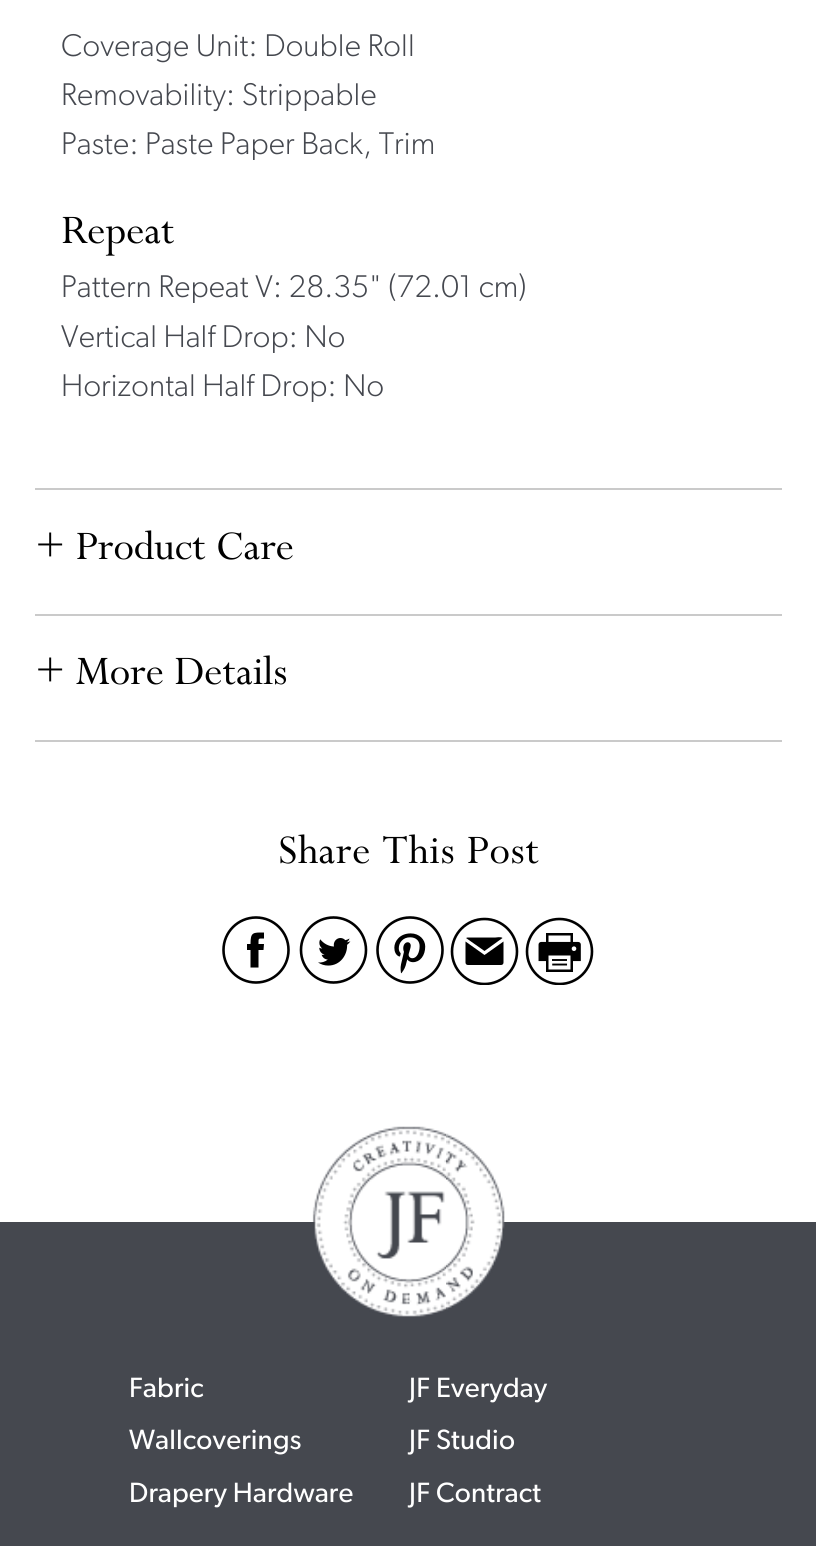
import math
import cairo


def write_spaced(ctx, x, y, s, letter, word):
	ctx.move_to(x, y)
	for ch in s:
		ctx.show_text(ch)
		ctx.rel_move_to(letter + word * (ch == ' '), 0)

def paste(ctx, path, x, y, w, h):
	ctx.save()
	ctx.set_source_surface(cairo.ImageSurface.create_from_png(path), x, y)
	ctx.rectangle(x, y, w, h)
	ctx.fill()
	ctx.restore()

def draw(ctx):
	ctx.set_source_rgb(1, 1, 1)
	ctx.paint()
	ctx.select_font_face('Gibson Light')
	ctx.set_font_size(31.5)
	ctx.set_source_rgb(0.271, 0.282, 0.31)
	for x, y, s in [
		(61, 56, 'Coverage Unit: Double Roll'),
		(61, 105, 'Removability: Strippable'),
		(61, 154, 'Paste: Paste Paper Back, Trim'),
	]:
		write_spaced(ctx, x, y, s, 0.2, 0)
	ctx.select_font_face('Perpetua')
	ctx.set_font_size(45.5)
	ctx.set_source_rgb(0, 0, 0)
	ctx.move_to(61, 243)
	ctx.show_text('Repeat')
	ctx.select_font_face('Gibson Light')
	ctx.set_font_size(31.5)
	ctx.set_source_rgb(0.271, 0.282, 0.31)
	for x, y, s in [
		(61, 297, 'Pattern Repeat V: 28.35" (72.01 cm)'),
		(61, 347, 'Vertical Half Drop: No'),
		(61, 396, 'Horizontal Half Drop: No'),
	]:
		write_spaced(ctx, x, y, s, 0.2, 0)
	ctx.set_source_rgb(0.792, 0.792, 0.792)
	ctx.rectangle(35, 488, 747, 2)
	ctx.fill()
	ctx.select_font_face('Perpetua')
	ctx.set_font_size(45.5)
	ctx.set_source_rgb(0, 0, 0)
	ctx.move_to(35, 559)
	ctx.show_text('+ Product Care')
	ctx.set_source_rgb(0.792, 0.792, 0.792)
	ctx.rectangle(35, 614, 747, 2)
	ctx.fill()
	ctx.set_source_rgb(0, 0, 0)
	ctx.move_to(35, 684)
	ctx.show_text('+ More Details')
	ctx.set_source_rgb(0.792, 0.792, 0.792)
	ctx.rectangle(35, 740, 747, 2)
	ctx.fill()
	ctx.set_source_rgb(0, 0, 0)
	write_spaced(ctx, 278, 863, 'Share This Post', 0.7, 0)
	ctx.new_path()
	ctx.arc(256, 950, 32.5, 0, 2 * math.pi)
	ctx.set_line_width(2.6)
	ctx.stroke()
	ctx.set_fill_rule(cairo.FILL_RULE_EVEN_ODD)
	ctx.new_path()
	ctx.move_to(250.5, 967.5)
	ctx.line_to(250.5, 950)
	ctx.line_to(247, 950)
	ctx.line_to(247, 944)
	ctx.line_to(250.5, 944)
	ctx.curve_to(250.5, 932, 253, 932.5, 264, 932.5)
	ctx.line_to(264, 938.5)
	ctx.curve_to(258, 938.5, 258.5, 938, 258.5, 944)
	ctx.line_to(264, 944)
	ctx.line_to(263.5, 950)
	ctx.line_to(258.5, 950)
	ctx.line_to(258.5, 967.5)
	ctx.close_path()
	ctx.fill()
	paste(ctx, 'media/1.png', 299, 916, 69, 68)
	paste(ctx, 'media/2.png', 376, 916, 68, 68)
	ctx.save()
	ctx.set_fill_rule(cairo.FILL_RULE_WINDING)
	ctx.rectangle(450, 915, 70, 70)
	ctx.clip()
	ctx.arc(484.5, 951.5, 32.5, 0, 2 * math.pi)
	ctx.stroke()
	ctx.restore()
	ctx.new_path()
	ctx.move_to(502.5, 938)
	ctx.line_to(484.5, 951)
	ctx.line_to(466, 938)
	ctx.line_to(467.5, 937.5)
	ctx.line_to(495.5, 937.5)
	ctx.curve_to(496, 937.5, 501, 936.5, 502.5, 938)
	ctx.close_path()
	ctx.move_to(503.5, 941.5)
	ctx.line_to(503.5, 962.5)
	ctx.curve_to(503.5, 964, 502.5, 965, 501, 965)
	ctx.line_to(468, 965)
	ctx.curve_to(466.5, 965, 465.5, 964, 465.5, 962.5)
	ctx.line_to(465.5, 941.5)
	ctx.line_to(484.5, 955)
	ctx.close_path()
	ctx.fill()
	paste(ctx, 'media/3.png', 525, 917, 69, 68)
	ctx.set_source_rgb(0.271, 0.282, 0.31)
	ctx.rectangle(0, 1222, 816, 324)
	ctx.fill()
	paste(ctx, 'media/4.png', 312, 1126, 193, 191)
	ctx.select_font_face('Gibson')
	ctx.set_font_size(28)
	ctx.set_source_rgb(1, 1, 1)
	for x, y, s in [
		(129, 1397, 'Fabric'),
		(129, 1449, 'Wallcoverings'),
		(129, 1502, 'Drapery Hardware'),
		(409, 1397, 'JF Everyday'),
		(409, 1449, 'JF Studio'),
		(409, 1502, 'JF Contract'),
	]:
		write_spaced(ctx, x, y, s, 0.2, 0)


surface = cairo.ImageSurface(cairo.FORMAT_RGB24, 816, 1546)
ctx = cairo.Context(surface)
options = cairo.FontOptions()
options.set_hint_metrics(cairo.HINT_METRICS_OFF)
options.set_hint_style(cairo.HINT_STYLE_NONE)
ctx.set_font_options(options)
ctx.set_miter_limit(4)
draw(ctx)
surface.write_to_png('image.png')
